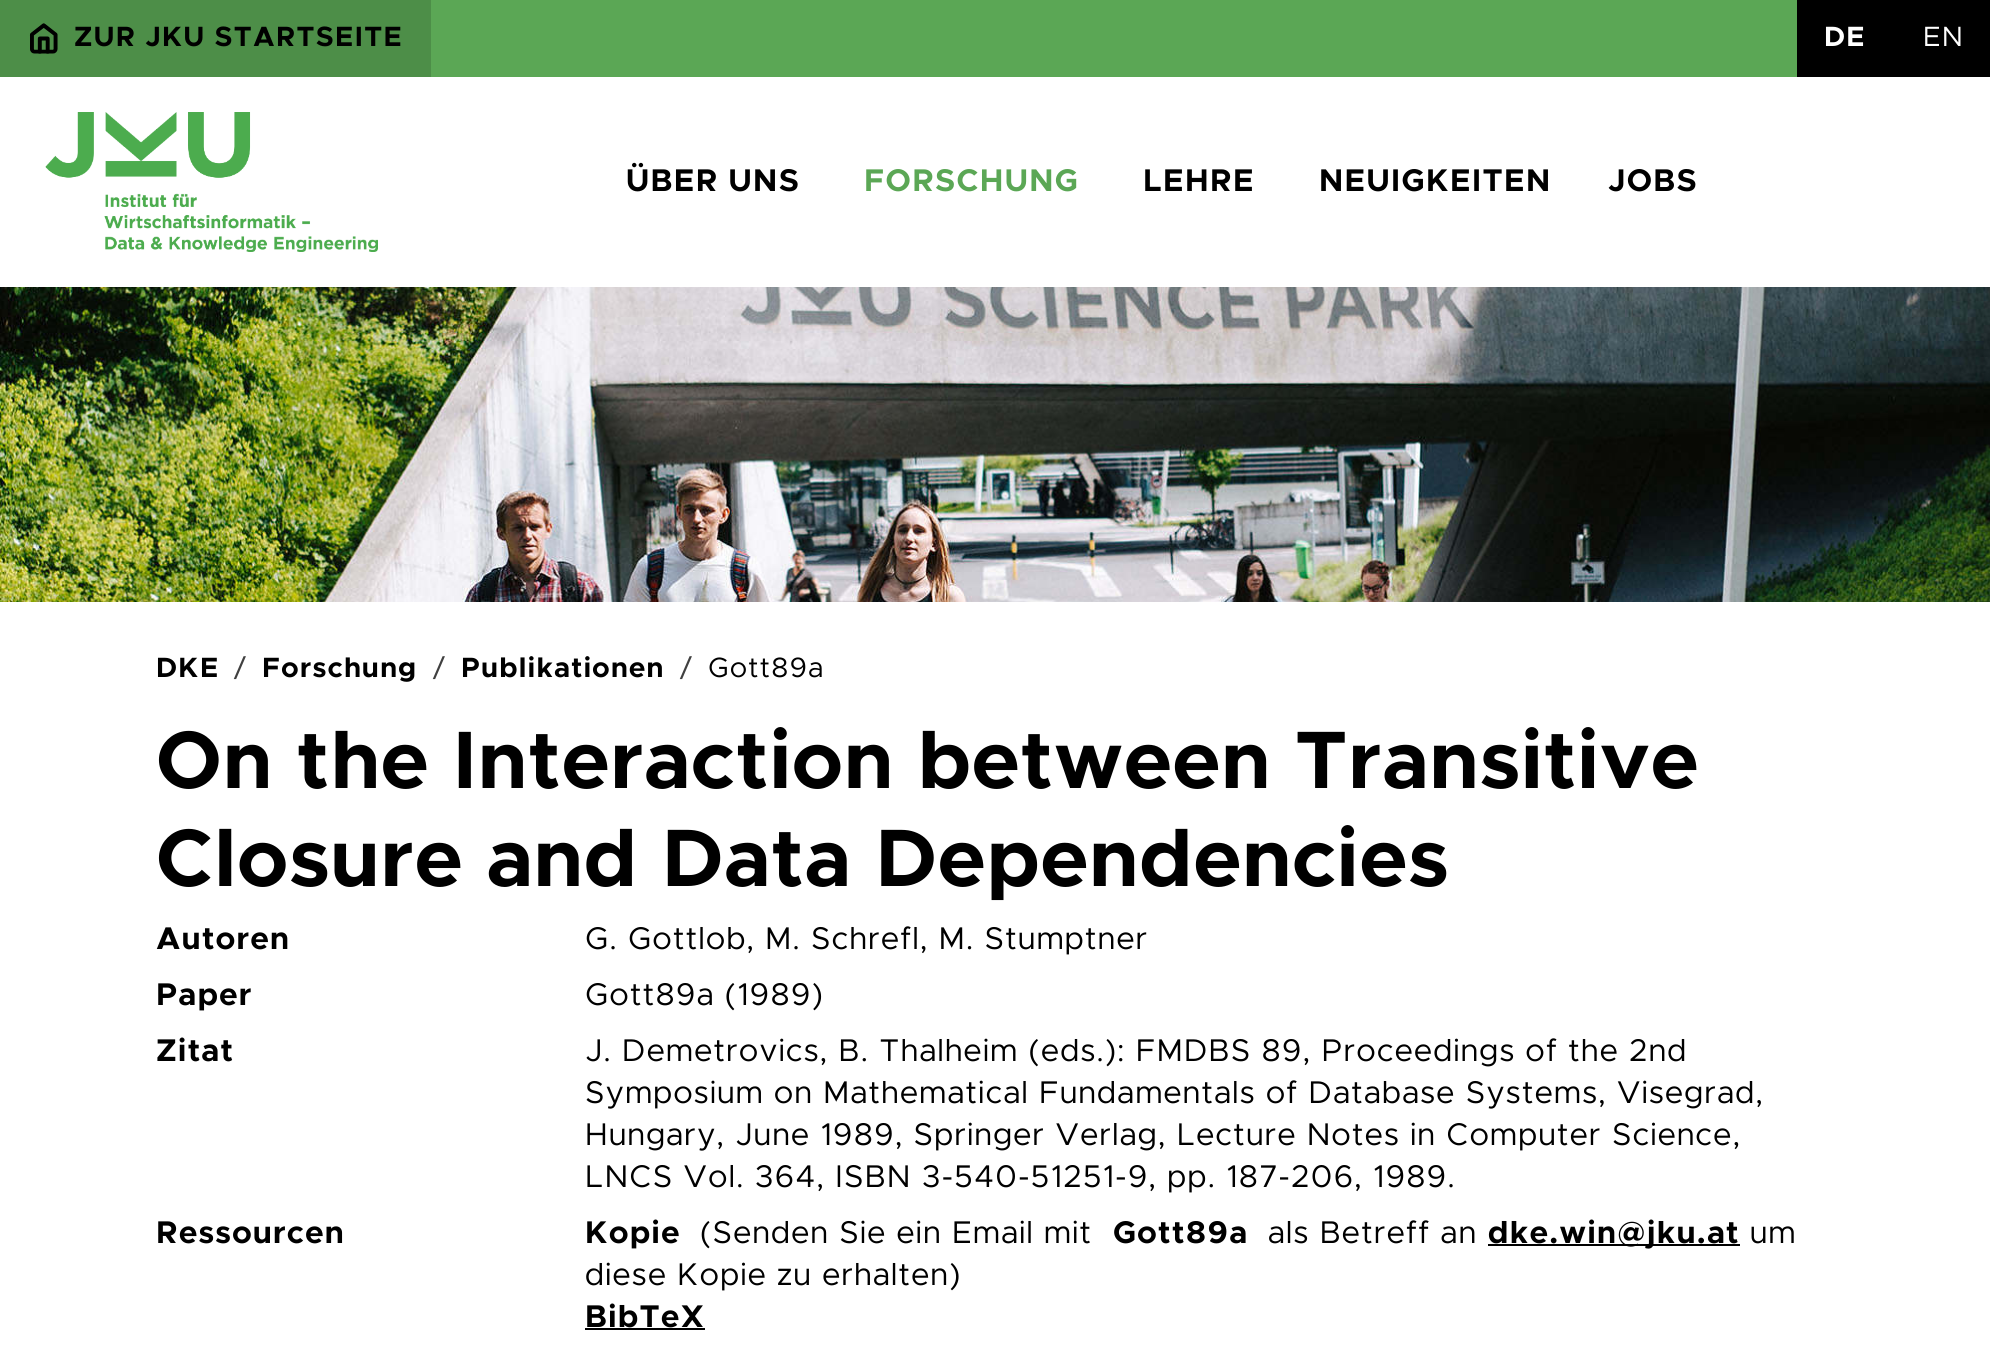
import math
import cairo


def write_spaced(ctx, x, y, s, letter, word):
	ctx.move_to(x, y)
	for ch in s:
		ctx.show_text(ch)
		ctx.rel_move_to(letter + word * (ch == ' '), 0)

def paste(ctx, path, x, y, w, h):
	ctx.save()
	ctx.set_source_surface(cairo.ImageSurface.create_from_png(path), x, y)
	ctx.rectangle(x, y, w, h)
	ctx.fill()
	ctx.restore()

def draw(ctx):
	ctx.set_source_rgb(1, 1, 1)
	ctx.paint()
	ctx.set_source_rgb(0.357, 0.655, 0.333)
	ctx.rectangle(431, 0, 1366, 77)
	ctx.fill()
	ctx.set_source_rgb(0.302, 0.557, 0.282)
	ctx.rectangle(0, 0, 431, 77)
	ctx.fill()
	paste(ctx, 'media/1.png', 29, 23, 29, 31)
	ctx.select_font_face('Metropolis', cairo.FONT_SLANT_NORMAL, cairo.FONT_WEIGHT_BOLD)
	ctx.set_font_size(28)
	ctx.set_source_rgb(0, 0, 0)
	write_spaced(ctx, 74, 46, 'ZUR JKU STARTSEITE', 1.4, 0)
	ctx.rectangle(1797, 0, 193, 77)
	ctx.fill()
	ctx.set_source_rgb(1, 1, 1)
	write_spaced(ctx, 1824, 46, 'DE', 1.4, 0)
	ctx.select_font_face('Metropolis')
	write_spaced(ctx, 1923, 46, 'EN', 1.4, 0)
	paste(ctx, 'media/2.png', 45, 112, 333, 140)
	ctx.select_font_face('Metropolis', cairo.FONT_SLANT_NORMAL, cairo.FONT_WEIGHT_BOLD)
	ctx.set_font_size(31.5)
	ctx.set_source_rgb(0, 0, 0)
	write_spaced(ctx, 626, 191, 'ÜBER UNS', 1.4, 0)
	ctx.set_source_rgb(0.357, 0.655, 0.333)
	write_spaced(ctx, 864, 191, 'FORSCHUNG', 1.4, 0)
	ctx.set_source_rgb(0, 0, 0)
	for x, y, s in [
		(1143, 191, 'LEHRE'),
		(1319, 191, 'NEUIGKEITEN'),
		(1608, 191, 'JOBS'),
	]:
		write_spaced(ctx, x, y, s, 1.4, 0)
	paste(ctx, 'media/3.png', 0, 287, 1990, 315)
	ctx.set_font_size(28)
	write_spaced(ctx, 156, 677, 'DKE', 1.4, 0)
	ctx.select_font_face('Metropolis')
	ctx.set_source_rgb(0.251, 0.251, 0.251)
	write_spaced(ctx, 233, 677, '/', 1.4, 0)
	ctx.select_font_face('Metropolis', cairo.FONT_SLANT_NORMAL, cairo.FONT_WEIGHT_BOLD)
	ctx.set_source_rgb(0, 0, 0)
	write_spaced(ctx, 262, 677, 'Forschung', 1.4, 0)
	ctx.select_font_face('Metropolis')
	ctx.set_source_rgb(0.251, 0.251, 0.251)
	write_spaced(ctx, 432, 677, '/', 1.4, 0)
	ctx.select_font_face('Metropolis', cairo.FONT_SLANT_NORMAL, cairo.FONT_WEIGHT_BOLD)
	ctx.set_source_rgb(0, 0, 0)
	write_spaced(ctx, 461, 677, 'Publikationen', 1.4, 0)
	ctx.select_font_face('Metropolis')
	ctx.set_source_rgb(0.251, 0.251, 0.251)
	write_spaced(ctx, 679, 677, '/', 1.4, 0)
	ctx.set_source_rgb(0, 0, 0)
	write_spaced(ctx, 708, 677, 'Gott89a', 1.4, 0)
	ctx.select_font_face('Metropolis', cairo.FONT_SLANT_NORMAL, cairo.FONT_WEIGHT_BOLD)
	ctx.set_font_size(81.75)
	write_spaced(ctx, 156, 788, 'On the Interaction between Transitive', 1.4, 0)
	write_spaced(ctx, 156, 886, 'Closure and Data Dependencies', 1.4, 0)
	ctx.set_font_size(31.5)
	write_spaced(ctx, 156, 949, 'Autoren', 1.4, 0)
	ctx.select_font_face('Metropolis')
	write_spaced(ctx, 585, 949, 'G. Gottlob, M. Schrefl, M. Stumptner', 1.4, 0)
	ctx.select_font_face('Metropolis', cairo.FONT_SLANT_NORMAL, cairo.FONT_WEIGHT_BOLD)
	write_spaced(ctx, 156, 1005, 'Paper', 1.4, 0)
	ctx.select_font_face('Metropolis')
	write_spaced(ctx, 585, 1005, 'Gott89a (1989)', 1.4, 0)
	ctx.select_font_face('Metropolis', cairo.FONT_SLANT_NORMAL, cairo.FONT_WEIGHT_BOLD)
	write_spaced(ctx, 156, 1061, 'Zitat', 1.4, 0)
	ctx.select_font_face('Metropolis')
	for x, y, s in [
		(585, 1061, 'J. Demetrovics, B. Thalheim (eds.): FMDBS 89, Proceedings of the 2nd'),
		(585, 1103, 'Symposium on Mathematical Fundamentals of Database Systems, Visegrad,'),
		(585, 1145, 'Hungary, June 1989, Springer Verlag, Lecture Notes in Computer Science,'),
		(585, 1187, 'LNCS Vol. 364, ISBN 3-540-51251-9, pp. 187-206, 1989.'),
	]:
		write_spaced(ctx, x, y, s, 1.4, 0)
	ctx.select_font_face('Metropolis', cairo.FONT_SLANT_NORMAL, cairo.FONT_WEIGHT_BOLD)
	write_spaced(ctx, 156, 1243, 'Ressourcen', 1.4, 0)
	write_spaced(ctx, 585, 1243, 'Kopie', 1.4, 0)
	ctx.select_font_face('Metropolis')
	write_spaced(ctx, 700, 1243, '(Senden Sie ein Email mit', 1.4, 0)
	ctx.select_font_face('Metropolis', cairo.FONT_SLANT_NORMAL, cairo.FONT_WEIGHT_BOLD)
	write_spaced(ctx, 1113, 1243, 'Gott89a', 1.4, 0)
	ctx.select_font_face('Metropolis')
	write_spaced(ctx, 1268, 1243, 'als Betreff an', 1.4, 0)
	ctx.rectangle(1488, 1244, 252, 2)
	ctx.fill()
	ctx.select_font_face('Metropolis', cairo.FONT_SLANT_NORMAL, cairo.FONT_WEIGHT_BOLD)
	write_spaced(ctx, 1488, 1243, 'dke.win@jku.at', 1.4, 0)
	ctx.select_font_face('Metropolis')
	write_spaced(ctx, 1750, 1243, 'um', 1.4, 0)
	write_spaced(ctx, 585, 1285, 'diese Kopie zu erhalten)', 1.4, 0)
	ctx.select_font_face('Metropolis', cairo.FONT_SLANT_NORMAL, cairo.FONT_WEIGHT_BOLD)
	write_spaced(ctx, 585, 1327, 'BibTeX', 1.4, 0)
	ctx.rectangle(585, 1328, 120, 2)
	ctx.fill()


surface = cairo.ImageSurface(cairo.FORMAT_RGB24, 1990, 1357)
ctx = cairo.Context(surface)
options = cairo.FontOptions()
options.set_hint_metrics(cairo.HINT_METRICS_OFF)
options.set_hint_style(cairo.HINT_STYLE_NONE)
ctx.set_font_options(options)
ctx.set_miter_limit(4)
draw(ctx)
surface.write_to_png('image.png')
